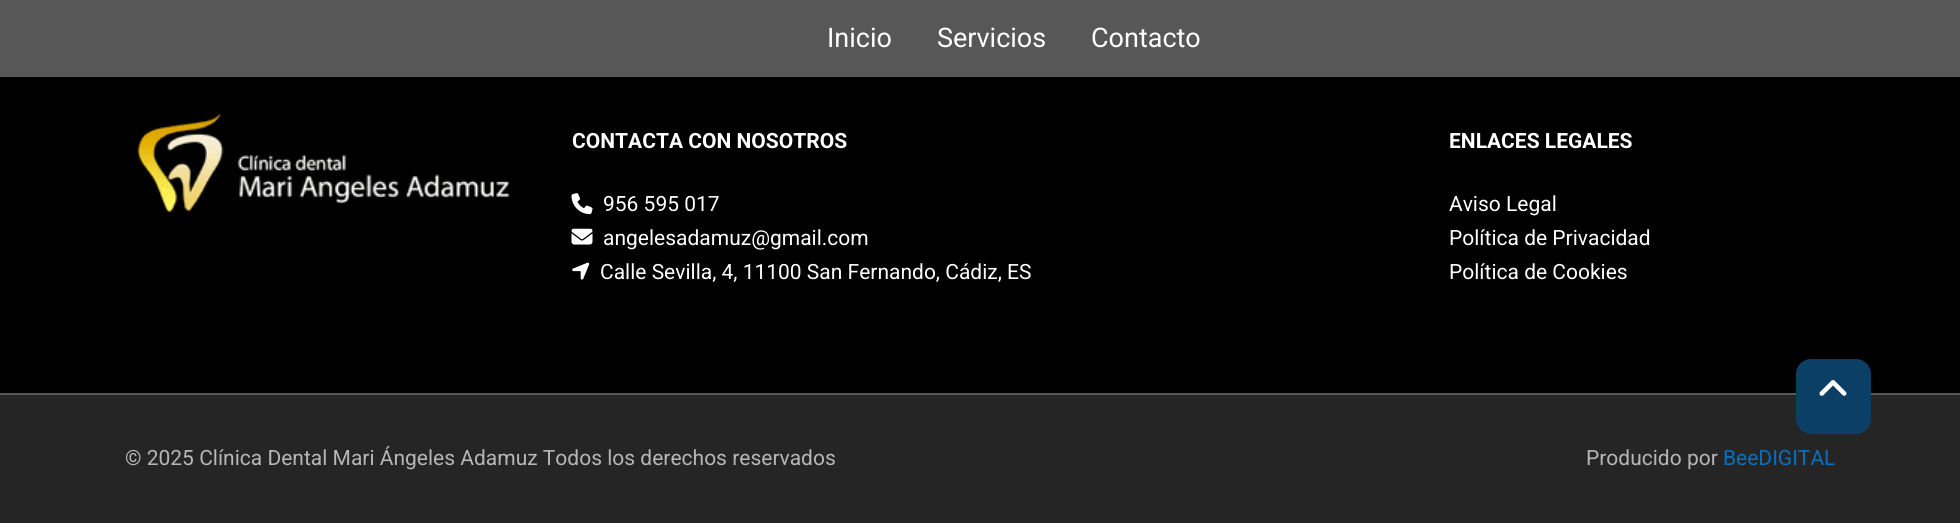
import math
import cairo


def round_path(ctx, x, y, w, h, r):
	ctx.new_sub_path()
	for i, (u, v) in enumerate([(x + w - r, y + h - r), (x + r, y + h - r), (x + r, y + r), (x + w - r, y + r)]):
		ctx.arc(u, v, r, i * math.pi / 2, (i + 1) * math.pi / 2)
	ctx.close_path()

def paste(ctx, path, x, y, w, h):
	ctx.save()
	ctx.set_source_surface(cairo.ImageSurface.create_from_png(path), x, y)
	ctx.rectangle(x, y, w, h)
	ctx.fill()
	ctx.restore()

def draw(ctx):
	ctx.set_source_rgb(0, 0, 0)
	ctx.paint()
	ctx.set_source_rgb(0.341, 0.341, 0.341)
	ctx.rectangle(0, 0, 1960, 77)
	ctx.fill()
	ctx.select_font_face('Roboto')
	ctx.set_font_size(27)
	ctx.set_source_rgb(1, 1, 1)
	for x, y, s in [
		(827, 47, 'Inicio'),
		(937, 47, 'Servicios'),
		(1091, 47, 'Contacto'),
	]:
		ctx.move_to(x, y)
		ctx.show_text(s)
	paste(ctx, 'media/1.png', 137, 113, 373, 99)
	ctx.select_font_face('Roboto', cairo.FONT_SLANT_NORMAL, cairo.FONT_WEIGHT_BOLD)
	ctx.set_font_size(21)
	ctx.move_to(572, 148)
	ctx.show_text('CONTACTA CON NOSOTROS')
	paste(ctx, 'media/2.png', 571, 193, 22, 22)
	ctx.select_font_face('Roboto')
	ctx.move_to(603, 211)
	ctx.show_text('956 595 017')
	paste(ctx, 'media/3.png', 571, 228, 22, 17)
	ctx.move_to(603, 245)
	ctx.show_text('angelesadamuz@gmail.com')
	paste(ctx, 'media/4.png', 572, 262, 18, 18)
	ctx.move_to(600, 279)
	ctx.show_text('Calle Sevilla, 4, 11100 San Fernando, Cádiz, ES')
	ctx.select_font_face('Roboto', cairo.FONT_SLANT_NORMAL, cairo.FONT_WEIGHT_BOLD)
	ctx.move_to(1449, 148)
	ctx.show_text('ENLACES LEGALES')
	ctx.select_font_face('Roboto')
	for x, y, s in [
		(1449, 211, 'Aviso Legal'),
		(1449, 245, 'Política de Privacidad'),
		(1449, 279, 'Política de Cookies'),
	]:
		ctx.move_to(x, y)
		ctx.show_text(s)
	ctx.set_source_rgb(0.145, 0.145, 0.145)
	ctx.rectangle(0, 395, 1960, 128)
	ctx.fill()
	ctx.set_source_rgb(0.341, 0.341, 0.341)
	ctx.rectangle(0, 393, 1960, 2)
	ctx.fill()
	ctx.set_source_rgb(0.714, 0.714, 0.714)
	ctx.move_to(125, 465)
	ctx.show_text('© 2025 Clínica Dental Mari Ángeles Adamuz Todos los derechos reservados')
	ctx.move_to(1586, 465)
	ctx.show_text('Producido por')
	ctx.set_source_rgb(0.024, 0.439, 0.749)
	ctx.move_to(1723, 465)
	ctx.show_text('BeeDIGITAL')
	ctx.set_source_rgb(0.047, 0.247, 0.396)
	round_path(ctx, 1796, 359, 75, 75, 15)
	ctx.fill()
	paste(ctx, 'media/5.png', 1819, 380, 28, 16)


surface = cairo.ImageSurface(cairo.FORMAT_RGB24, 1960, 523)
ctx = cairo.Context(surface)
options = cairo.FontOptions()
options.set_hint_metrics(cairo.HINT_METRICS_OFF)
options.set_hint_style(cairo.HINT_STYLE_NONE)
ctx.set_font_options(options)
ctx.set_miter_limit(4)
draw(ctx)
surface.write_to_png('image.png')
